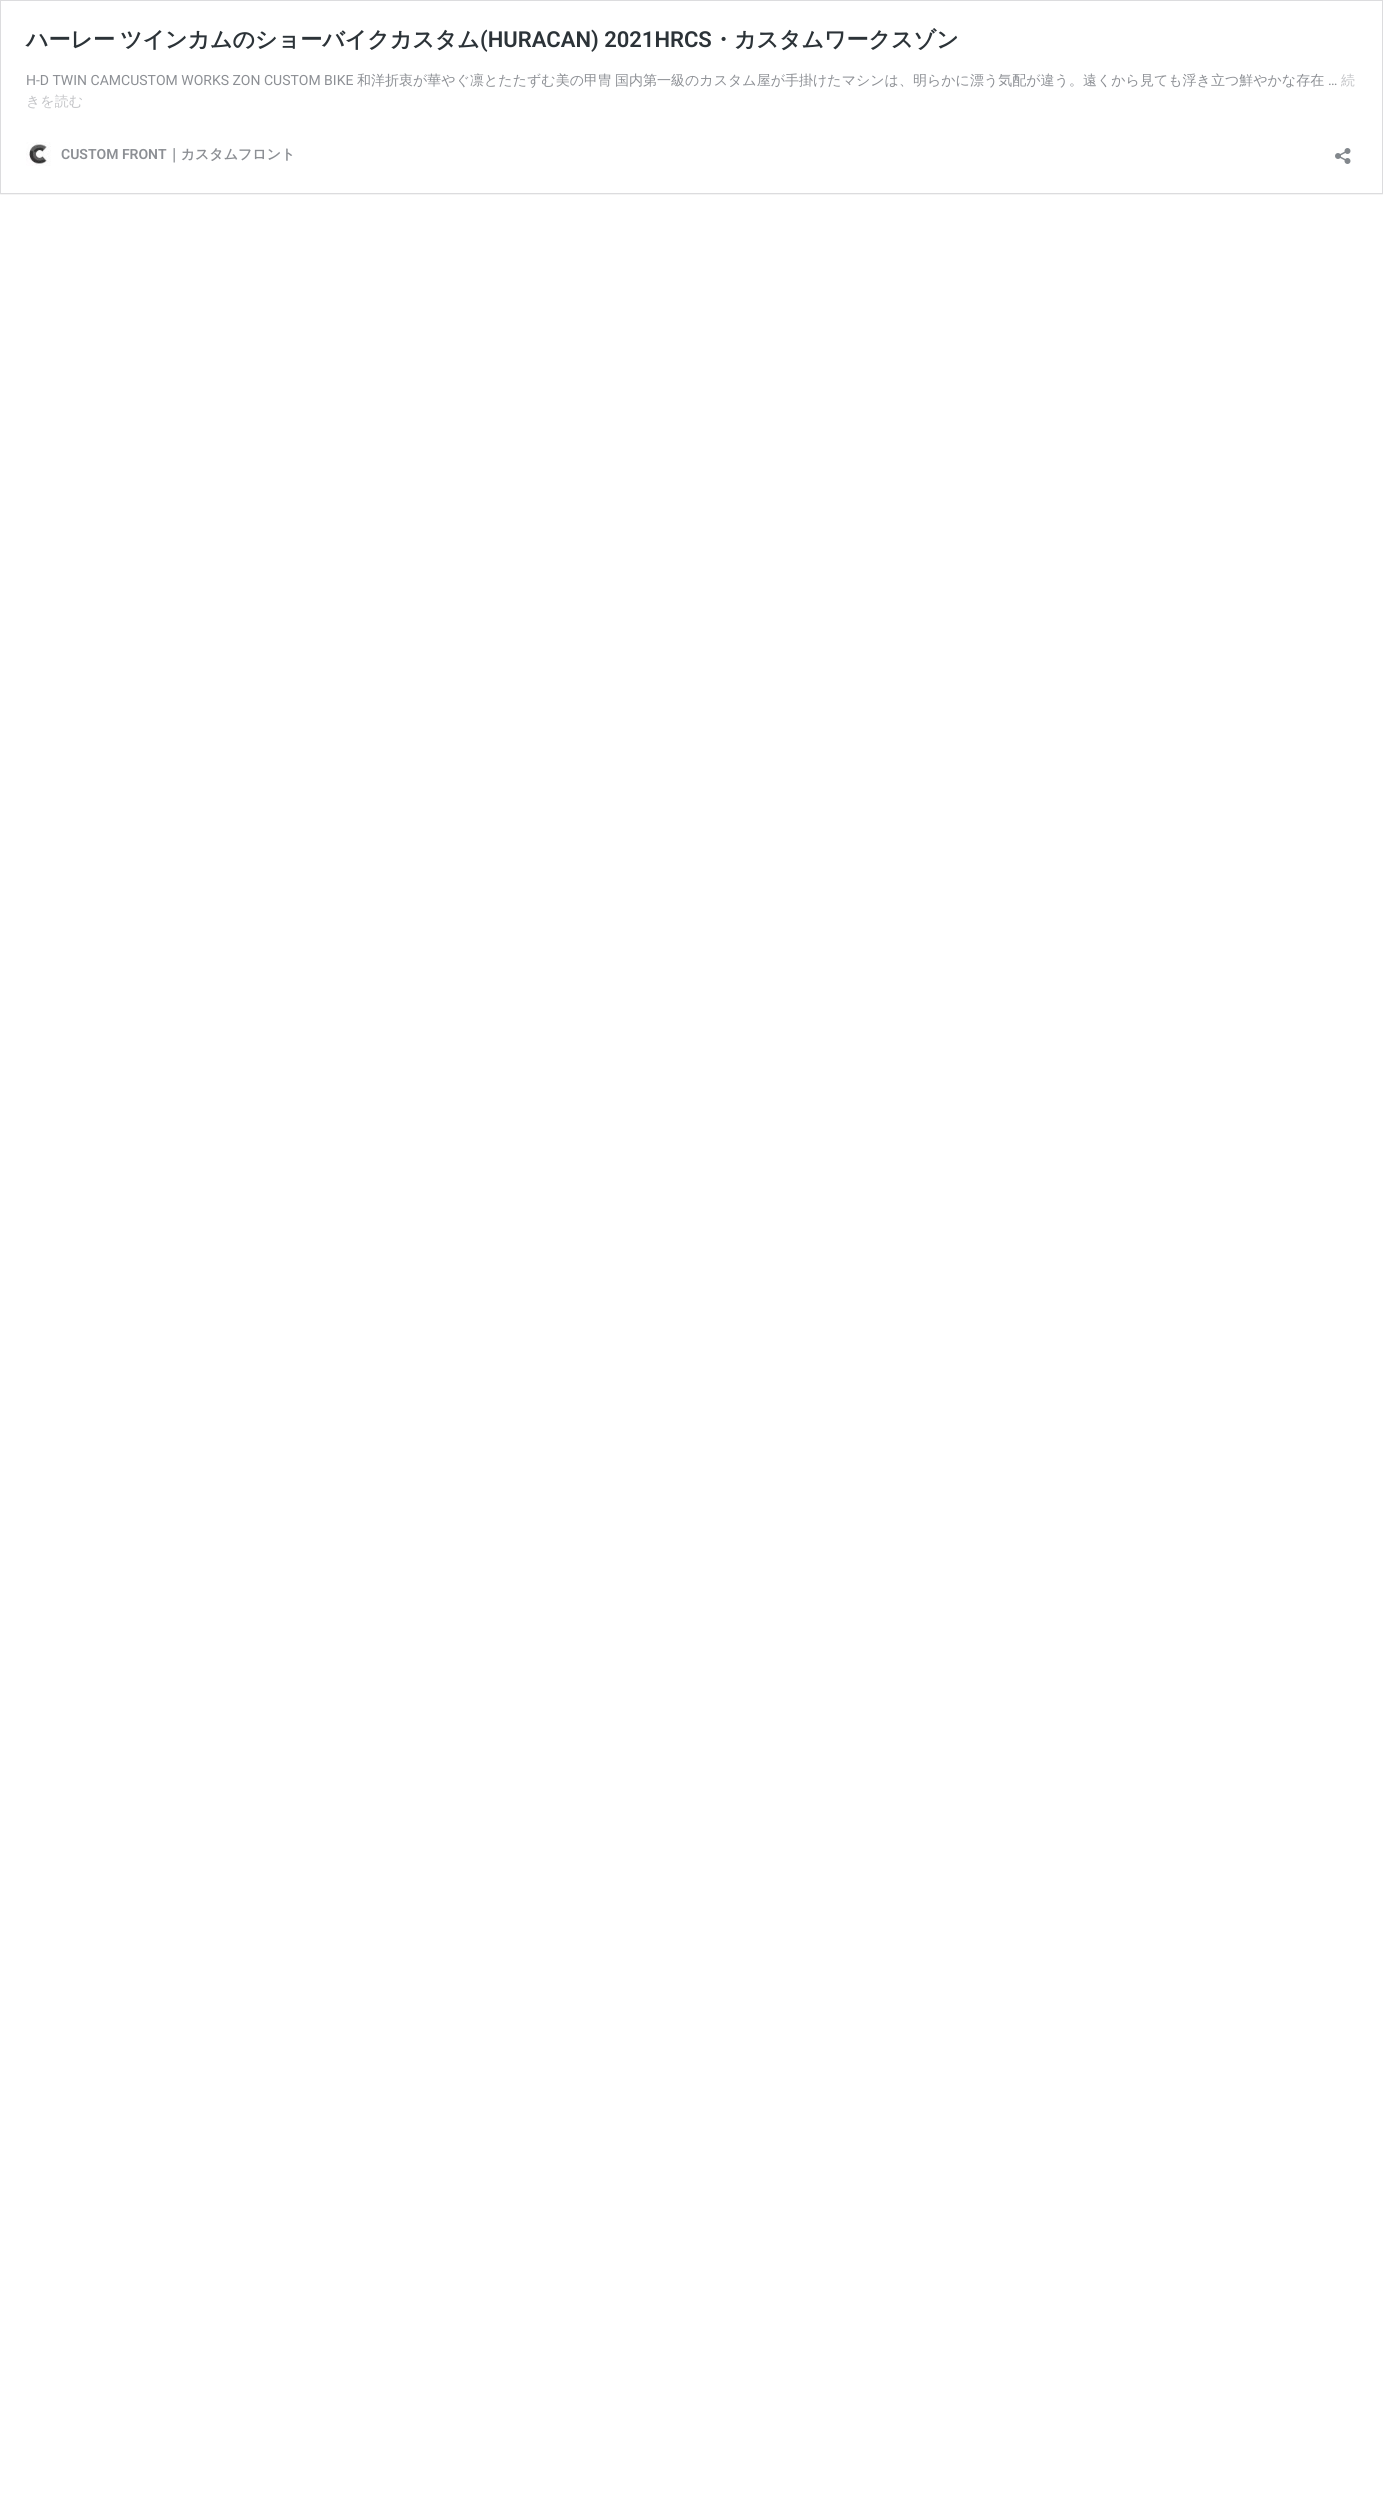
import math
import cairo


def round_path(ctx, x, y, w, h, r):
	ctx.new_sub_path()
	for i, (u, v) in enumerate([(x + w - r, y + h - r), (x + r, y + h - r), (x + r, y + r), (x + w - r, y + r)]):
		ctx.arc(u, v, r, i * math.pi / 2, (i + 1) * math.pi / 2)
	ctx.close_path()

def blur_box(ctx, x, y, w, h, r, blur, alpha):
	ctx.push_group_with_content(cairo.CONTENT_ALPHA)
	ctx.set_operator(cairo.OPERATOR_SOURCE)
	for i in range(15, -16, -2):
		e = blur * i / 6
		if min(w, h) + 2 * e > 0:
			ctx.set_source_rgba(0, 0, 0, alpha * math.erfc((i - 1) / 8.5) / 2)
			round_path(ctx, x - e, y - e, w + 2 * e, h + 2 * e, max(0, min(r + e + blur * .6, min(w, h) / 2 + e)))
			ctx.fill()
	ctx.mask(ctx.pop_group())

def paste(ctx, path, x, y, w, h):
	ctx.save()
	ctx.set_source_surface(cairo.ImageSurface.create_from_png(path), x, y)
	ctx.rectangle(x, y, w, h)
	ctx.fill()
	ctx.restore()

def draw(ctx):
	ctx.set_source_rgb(1, 1, 1)
	ctx.paint()
	ctx.save()
	ctx.rectangle(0, 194, 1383, 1)
	ctx.clip()
	ctx.set_source_rgb(0, 0, 0)
	blur_box(ctx, 0, 1, 1383, 194, 0, 0.5, 0.05)
	ctx.restore()
	ctx.rectangle(0.5, 0.5, 1382, 193)
	ctx.set_source_rgb(0.863, 0.863, 0.871)
	ctx.set_line_width(1)
	ctx.stroke()
	ctx.select_font_face('WenQuanYi Zen Hei', cairo.FONT_SLANT_NORMAL, cairo.FONT_WEIGHT_BOLD)
	ctx.set_font_size(22)
	ctx.set_source_rgb(0.173, 0.2, 0.22)
	ctx.move_to(26, 47)
	ctx.show_text('ハーレー')
	ctx.move_to(120, 47)
	ctx.show_text('ツインカムのショーバイクカスタム')
	ctx.select_font_face('Roboto SemiBold')
	ctx.move_to(480, 47)
	ctx.show_text('(HURACAN) 2021HRCS')
	ctx.select_font_face('WenQuanYi Zen Hei', cairo.FONT_SLANT_NORMAL, cairo.FONT_WEIGHT_BOLD)
	ctx.move_to(712, 47)
	ctx.show_text('・カスタムワークスゾン')
	ctx.select_font_face('Roboto')
	ctx.set_font_size(14)
	ctx.set_source_rgb(0.549, 0.561, 0.58)
	ctx.move_to(26, 85)
	ctx.show_text('H-D TWIN CAMCUSTOM WORKS ZON CUSTOM BIKE')
	ctx.select_font_face('WenQuanYi Zen Hei Medium')
	ctx.move_to(357, 85)
	ctx.show_text('和洋折衷が華やぐ凛とたたずむ美の甲冑')
	ctx.move_to(615, 85)
	ctx.show_text('国内第一級のカスタム屋が手掛けたマシンは、明らかに漂う気配が違う。遠くから見ても浮き立つ鮮やかな存在')
	ctx.select_font_face('Roboto')
	ctx.move_to(1328, 85)
	ctx.show_text('…')
	ctx.select_font_face('WenQuanYi Zen Hei Medium')
	ctx.set_source_rgb(0.765, 0.769, 0.78)
	ctx.move_to(1341, 85)
	ctx.show_text('続')
	ctx.move_to(26, 106)
	ctx.show_text('きを読む')
	paste(ctx, 'media/1.png', 26, 142, 25, 24)
	ctx.select_font_face('Roboto SemiBold')
	ctx.set_source_rgb(0.549, 0.561, 0.58)
	ctx.move_to(61, 159)
	ctx.show_text('CUSTOM FRONT')
	ctx.select_font_face('WenQuanYi Zen Hei', cairo.FONT_SLANT_NORMAL, cairo.FONT_WEIGHT_BOLD)
	ctx.move_to(167, 159)
	ctx.show_text('｜カスタムフロント')
	paste(ctx, 'media/2.png', 1335, 148, 16, 16)


surface = cairo.ImageSurface(cairo.FORMAT_RGB24, 1383, 2515)
ctx = cairo.Context(surface)
options = cairo.FontOptions()
options.set_hint_metrics(cairo.HINT_METRICS_OFF)
options.set_hint_style(cairo.HINT_STYLE_NONE)
ctx.set_font_options(options)
ctx.set_miter_limit(4)
draw(ctx)
surface.write_to_png('image.png')
